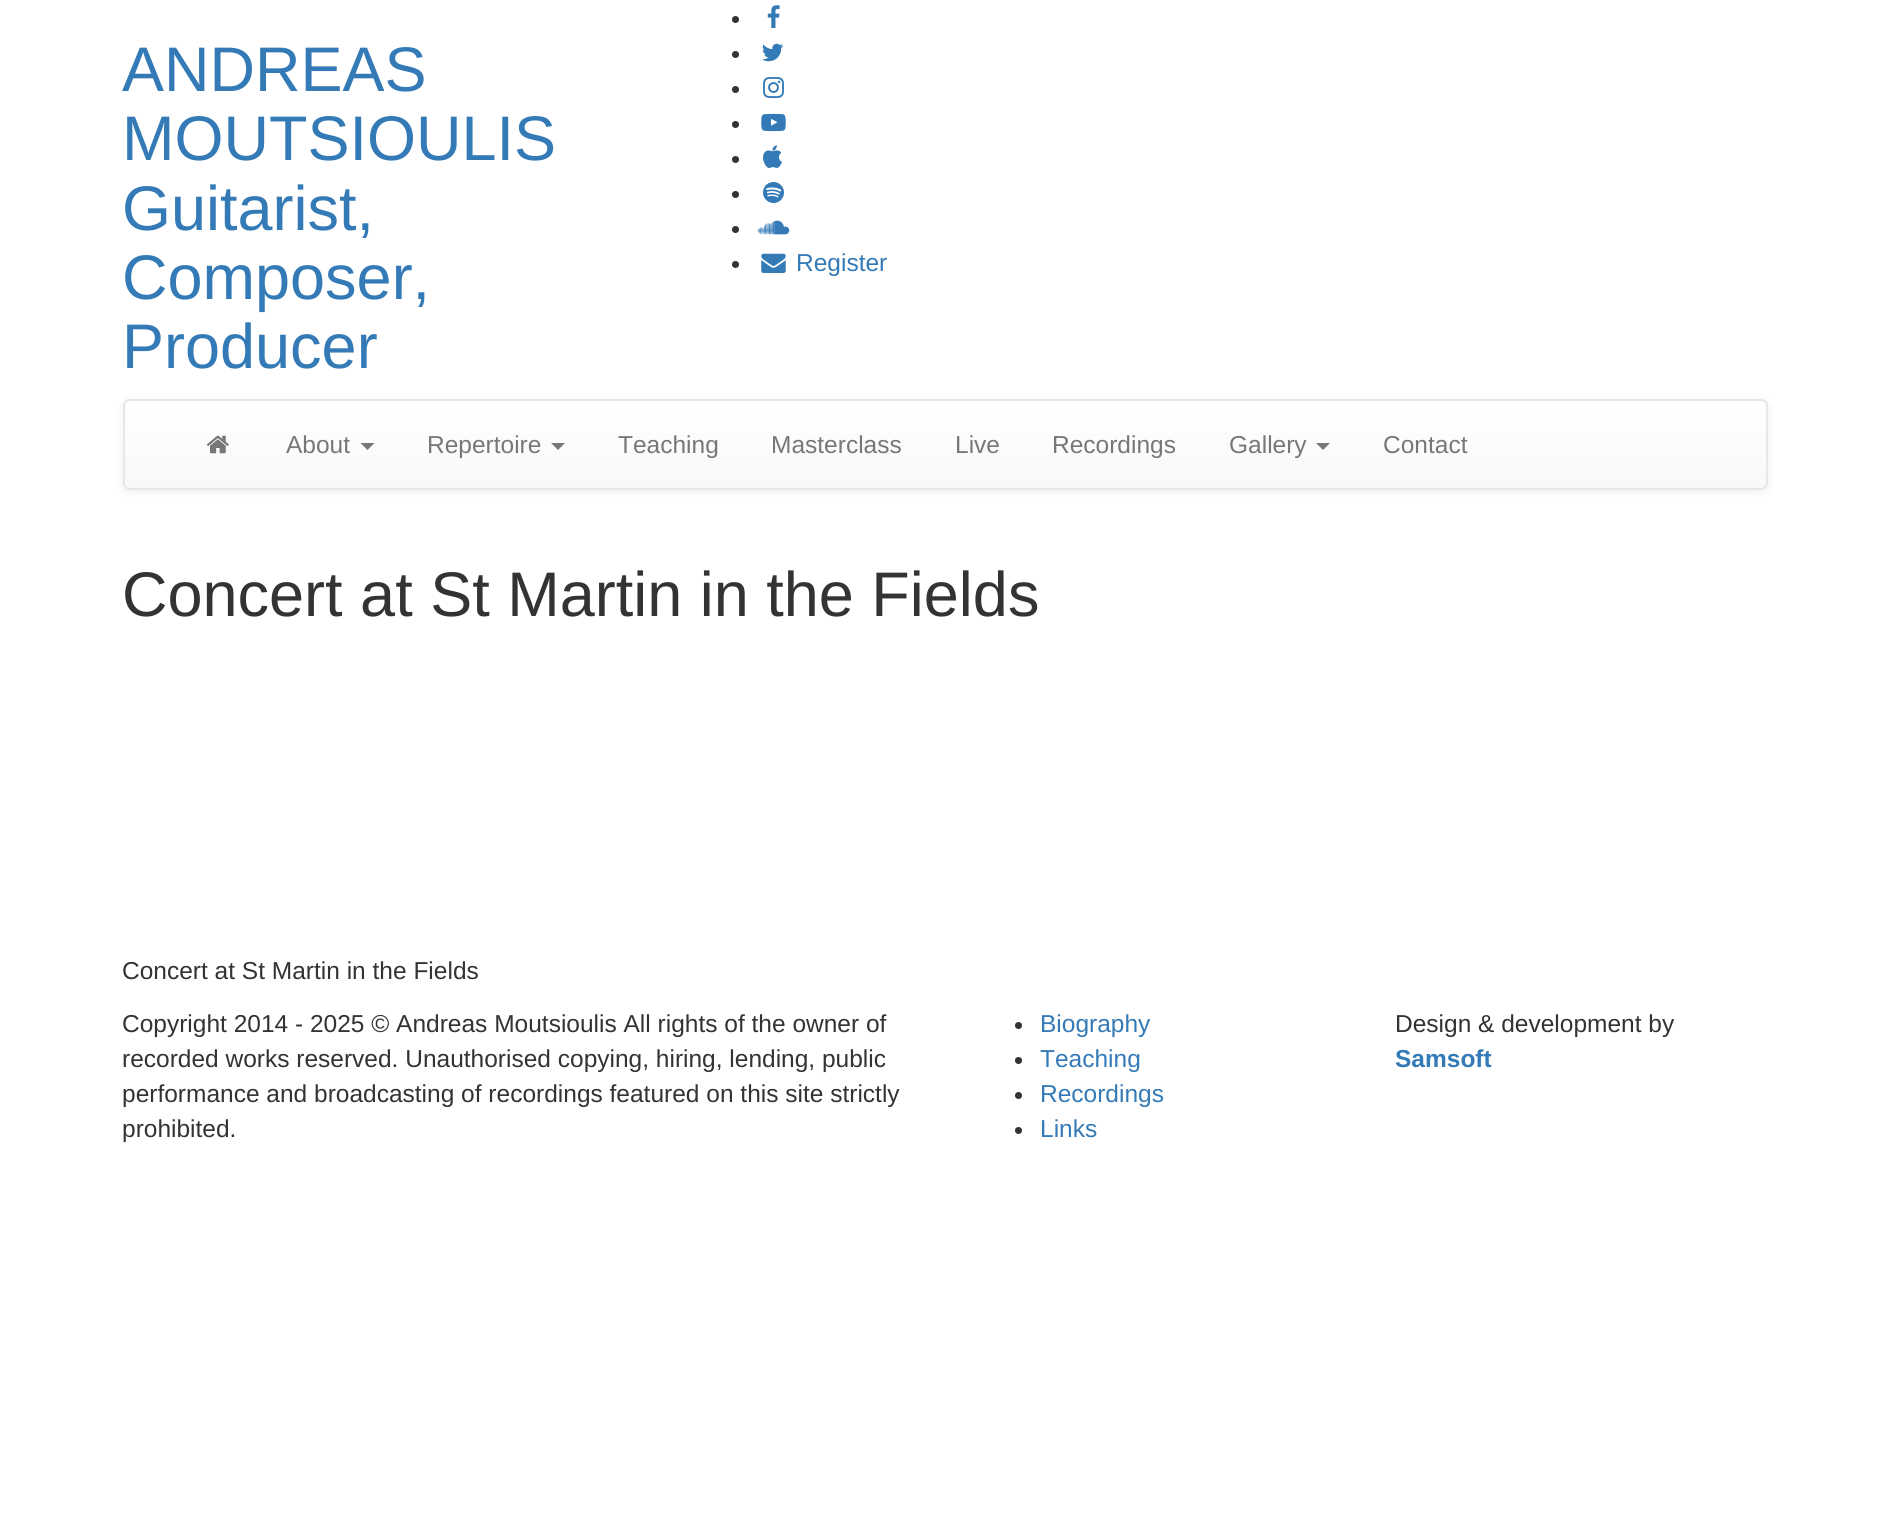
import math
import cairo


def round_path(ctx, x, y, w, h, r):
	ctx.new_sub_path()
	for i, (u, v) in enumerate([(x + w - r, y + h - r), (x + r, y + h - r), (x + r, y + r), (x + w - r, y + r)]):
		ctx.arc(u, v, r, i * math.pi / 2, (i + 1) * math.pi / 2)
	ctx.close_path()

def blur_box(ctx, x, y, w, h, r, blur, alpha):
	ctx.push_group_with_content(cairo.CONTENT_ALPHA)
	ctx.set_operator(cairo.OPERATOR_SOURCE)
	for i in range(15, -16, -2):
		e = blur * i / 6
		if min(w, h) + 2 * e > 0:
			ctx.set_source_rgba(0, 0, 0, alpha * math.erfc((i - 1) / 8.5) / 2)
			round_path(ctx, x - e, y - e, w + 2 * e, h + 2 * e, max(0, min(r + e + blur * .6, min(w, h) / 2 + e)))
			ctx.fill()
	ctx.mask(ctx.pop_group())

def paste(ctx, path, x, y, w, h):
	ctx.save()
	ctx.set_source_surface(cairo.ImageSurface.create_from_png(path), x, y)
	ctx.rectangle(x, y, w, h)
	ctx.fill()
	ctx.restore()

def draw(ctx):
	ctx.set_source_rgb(1, 1, 1)
	ctx.paint()
	ctx.select_font_face('Liberation Sans')
	ctx.set_font_size(63)
	ctx.set_source_rgb(0.2, 0.478, 0.718)
	for x, y, s in [
		(122, 91, 'ANDREAS'),
		(122, 160, 'MOUTSIOULIS'),
		(122, 230, 'Guitarist,'),
		(122, 299, 'Composer,'),
		(122, 368, 'Producer'),
	]:
		ctx.move_to(x, y)
		ctx.show_text(s)
	ctx.set_source_rgb(0.2, 0.2, 0.2)
	ctx.new_path()
	ctx.arc(735.5, 19.5, 3.5, 0, 2 * math.pi)
	ctx.fill()
	paste(ctx, 'media/1.png', 767, 5, 13, 23)
	ctx.arc(735.5, 54.5, 3.5, 0, 2 * math.pi)
	ctx.fill()
	paste(ctx, 'media/2.png', 762, 43, 22, 19)
	ctx.arc(735.5, 89.5, 3.5, 0, 2 * math.pi)
	ctx.fill()
	paste(ctx, 'media/3.png', 763, 77, 21, 21)
	ctx.arc(735.5, 124.5, 3.5, 0, 2 * math.pi)
	ctx.fill()
	paste(ctx, 'media/4.png', 761, 113, 25, 19)
	ctx.arc(735.5, 159.5, 3.5, 0, 2 * math.pi)
	ctx.fill()
	paste(ctx, 'media/5.png', 763, 145, 19, 23)
	ctx.arc(735.5, 194.5, 3.5, 0, 2 * math.pi)
	ctx.fill()
	paste(ctx, 'media/6.png', 763, 182, 21, 21)
	ctx.arc(735.5, 229.5, 3.5, 0, 2 * math.pi)
	ctx.fill()
	paste(ctx, 'media/7.png', 757, 220, 33, 15)
	ctx.arc(735.5, 264.5, 3.5, 0, 2 * math.pi)
	ctx.fill()
	paste(ctx, 'media/8.png', 761, 253, 25, 20)
	ctx.set_font_size(24.5)
	ctx.set_source_rgb(0.2, 0.478, 0.718)
	ctx.move_to(796, 271)
	ctx.show_text('Register')
	ctx.set_source_rgb(0, 0, 0)
	blur_box(ctx, 123, 401, 1645, 91, 7, 4.5, 0.07)
	ctx.save()
	round_path(ctx, 123, 399, 1645, 91, 7)
	ctx.clip()
	gradient = cairo.LinearGradient(945, 401, 945, 488)
	gradient.add_color_stop_rgba(0, 1, 1, 1, 1)
	gradient.add_color_stop_rgba(1, 0.973, 0.973, 0.973, 1)
	ctx.set_source(gradient)
	ctx.rectangle(123, 401, 1645, 87)
	ctx.fill()
	ctx.restore()
	round_path(ctx, 124, 400, 1643, 89, 6)
	ctx.set_source_rgb(0.906, 0.906, 0.906)
	ctx.stroke()
	paste(ctx, 'media/9.png', 206, 435, 23, 19)
	ctx.set_source_rgb(0.467, 0.467, 0.467)
	ctx.move_to(286, 453)
	ctx.show_text('About')
	ctx.new_path()
	ctx.move_to(360.5, 443)
	ctx.line_to(374.5, 443)
	ctx.line_to(367.5, 450)
	ctx.close_path()
	ctx.fill()
	ctx.move_to(427, 453)
	ctx.show_text('Repertoire')
	ctx.new_path()
	ctx.move_to(551, 443)
	ctx.line_to(565, 443)
	ctx.line_to(558, 450)
	ctx.close_path()
	ctx.fill()
	for x, y, s in [
		(618, 453, 'Teaching'),
		(771, 453, 'Masterclass'),
		(955, 453, 'Live'),
		(1052, 453, 'Recordings'),
		(1229, 453, 'Gallery'),
	]:
		ctx.move_to(x, y)
		ctx.show_text(s)
	ctx.new_path()
	ctx.move_to(1316, 443)
	ctx.line_to(1330, 443)
	ctx.line_to(1323, 450)
	ctx.close_path()
	ctx.fill()
	ctx.move_to(1383, 453)
	ctx.show_text('Contact')
	ctx.set_font_size(63)
	ctx.set_source_rgb(0.2, 0.2, 0.2)
	ctx.move_to(122, 616)
	ctx.show_text('Concert at St Martin in the Fields')
	ctx.set_font_size(24.5)
	for x, y, s in [
		(122, 979, 'Concert at St Martin in the Fields'),
		(122, 1032, 'Copyright 2014 - 2025 © Andreas Moutsioulis All rights of the owner of'),
		(122, 1067, 'recorded works reserved. Unauthorised copying, hiring, lending, public'),
		(122, 1102, 'performance and broadcasting of recordings featured on this site strictly'),
		(122, 1137, 'prohibited.'),
	]:
		ctx.move_to(x, y)
		ctx.show_text(s)
	ctx.new_path()
	ctx.arc(1018.5, 1025.5, 3.5, 0, 2 * math.pi)
	ctx.fill()
	ctx.set_source_rgb(0.2, 0.478, 0.718)
	ctx.move_to(1040, 1032)
	ctx.show_text('Biography')
	ctx.set_source_rgb(0.2, 0.2, 0.2)
	ctx.new_path()
	ctx.arc(1018.5, 1060.5, 3.5, 0, 2 * math.pi)
	ctx.fill()
	ctx.set_source_rgb(0.2, 0.478, 0.718)
	ctx.move_to(1040, 1067)
	ctx.show_text('Teaching')
	ctx.set_source_rgb(0.2, 0.2, 0.2)
	ctx.new_path()
	ctx.arc(1018.5, 1095.5, 3.5, 0, 2 * math.pi)
	ctx.fill()
	ctx.set_source_rgb(0.2, 0.478, 0.718)
	ctx.move_to(1040, 1102)
	ctx.show_text('Recordings')
	ctx.set_source_rgb(0.2, 0.2, 0.2)
	ctx.new_path()
	ctx.arc(1018.5, 1130.5, 3.5, 0, 2 * math.pi)
	ctx.fill()
	ctx.set_source_rgb(0.2, 0.478, 0.718)
	ctx.move_to(1040, 1137)
	ctx.show_text('Links')
	ctx.set_source_rgb(0.2, 0.2, 0.2)
	ctx.move_to(1395, 1032)
	ctx.show_text('Design & development by')
	ctx.select_font_face('Liberation Sans', cairo.FONT_SLANT_NORMAL, cairo.FONT_WEIGHT_BOLD)
	ctx.set_source_rgb(0.2, 0.478, 0.718)
	ctx.move_to(1395, 1067)
	ctx.show_text('Samsoft')


surface = cairo.ImageSurface(cairo.FORMAT_RGB24, 1887, 1522)
ctx = cairo.Context(surface)
options = cairo.FontOptions()
options.set_hint_metrics(cairo.HINT_METRICS_OFF)
options.set_hint_style(cairo.HINT_STYLE_NONE)
ctx.set_font_options(options)
ctx.set_miter_limit(4)
draw(ctx)
surface.write_to_png('image.png')
